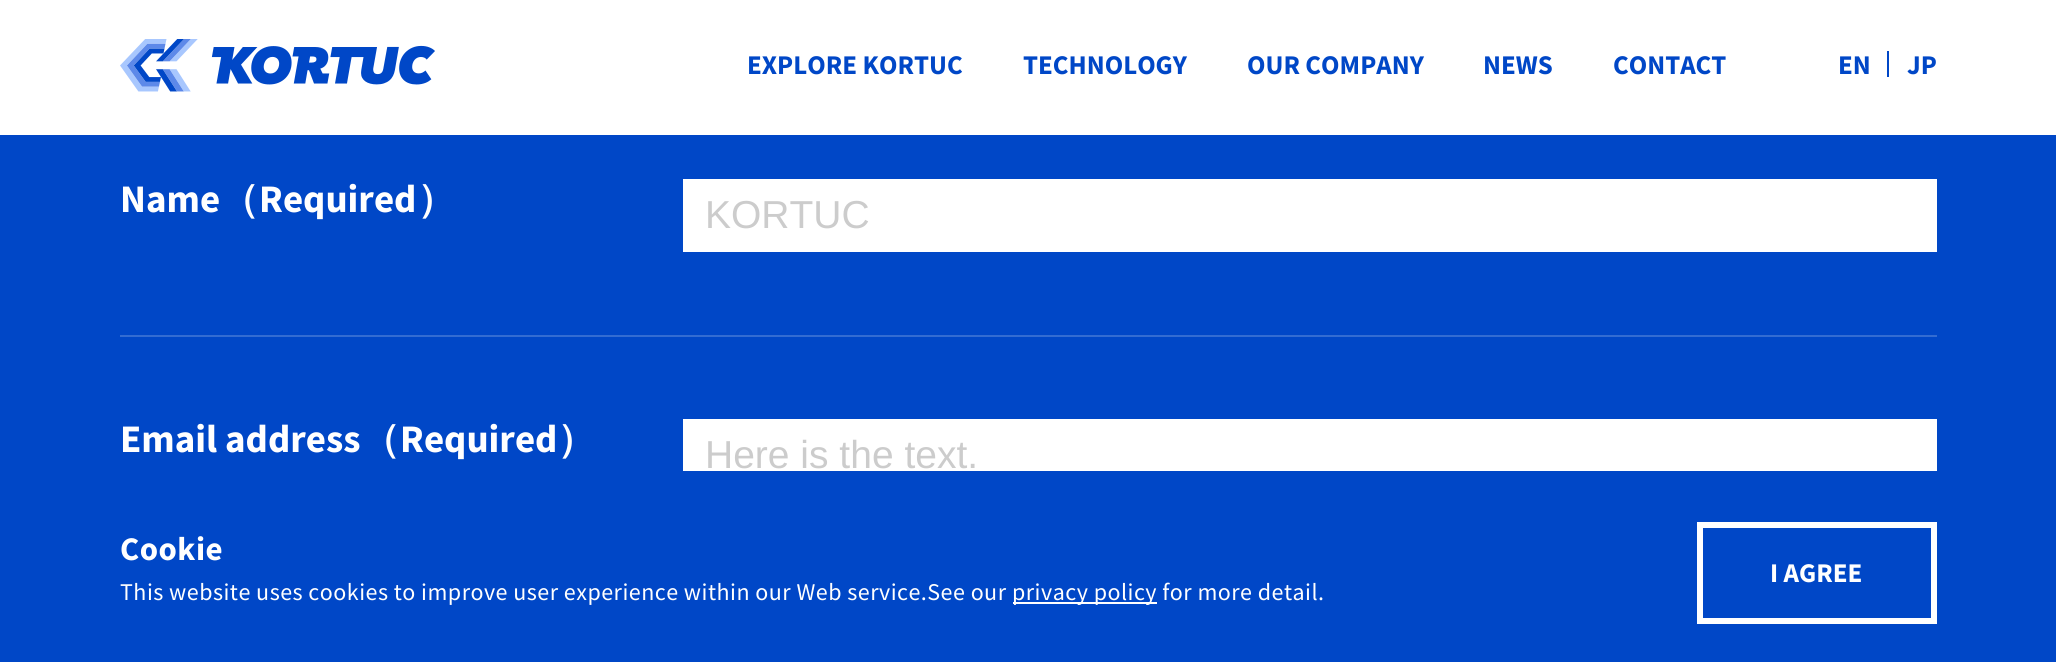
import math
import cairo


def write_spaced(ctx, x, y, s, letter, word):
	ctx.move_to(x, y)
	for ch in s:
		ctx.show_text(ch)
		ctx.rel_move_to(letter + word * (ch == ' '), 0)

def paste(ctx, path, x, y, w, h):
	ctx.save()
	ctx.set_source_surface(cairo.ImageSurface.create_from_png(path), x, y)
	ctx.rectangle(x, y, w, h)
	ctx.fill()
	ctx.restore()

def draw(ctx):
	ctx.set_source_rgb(0, 0.278, 0.78)
	ctx.paint()
	ctx.set_source_rgb(1, 1, 1)
	ctx.rectangle(0, 0, 2056, 135)
	ctx.fill()
	paste(ctx, 'media/1.png', 120, 39, 315, 53)
	ctx.select_font_face('Source Sans Pro', cairo.FONT_SLANT_NORMAL, cairo.FONT_WEIGHT_BOLD)
	ctx.set_font_size(27)
	ctx.set_source_rgb(0, 0.278, 0.78)
	for x, y, s in [
		(747, 74, 'EXPLORE KORTUC'),
		(1023, 74, 'TECHNOLOGY'),
		(1247, 74, 'OUR COMPANY'),
		(1483, 74, 'NEWS'),
		(1613, 74, 'CONTACT'),
		(1838, 74, 'EN'),
	]:
		ctx.move_to(x, y)
		ctx.show_text(s)
	ctx.rectangle(1887, 51, 2, 26)
	ctx.fill()
	ctx.move_to(1907, 74)
	ctx.show_text('JP')
	ctx.set_source_rgb(0.2, 0.424, 0.824)
	ctx.rectangle(120, 335, 1817, 2)
	ctx.fill()
	ctx.set_font_size(39)
	ctx.set_source_rgb(1, 1, 1)
	ctx.move_to(120, 212)
	ctx.show_text('Name')
	ctx.select_font_face('WenQuanYi Zen Hei', cairo.FONT_SLANT_NORMAL, cairo.FONT_WEIGHT_BOLD)
	ctx.move_to(220, 212)
	ctx.show_text('（')
	ctx.select_font_face('Source Sans Pro', cairo.FONT_SLANT_NORMAL, cairo.FONT_WEIGHT_BOLD)
	ctx.move_to(259, 212)
	ctx.show_text('Required')
	ctx.select_font_face('WenQuanYi Zen Hei', cairo.FONT_SLANT_NORMAL, cairo.FONT_WEIGHT_BOLD)
	ctx.move_to(417, 212)
	ctx.show_text('）')
	ctx.rectangle(683, 179, 1254, 73)
	ctx.fill()
	ctx.select_font_face('Liberation Sans')
	ctx.set_source_rgb(0.8, 0.8, 0.8)
	ctx.move_to(705, 228)
	ctx.show_text('KORTUC')
	ctx.select_font_face('Source Sans Pro', cairo.FONT_SLANT_NORMAL, cairo.FONT_WEIGHT_BOLD)
	ctx.set_source_rgb(1, 1, 1)
	ctx.move_to(120, 452)
	ctx.show_text('Email address')
	ctx.select_font_face('WenQuanYi Zen Hei', cairo.FONT_SLANT_NORMAL, cairo.FONT_WEIGHT_BOLD)
	ctx.move_to(361, 452)
	ctx.show_text('（')
	ctx.select_font_face('Source Sans Pro', cairo.FONT_SLANT_NORMAL, cairo.FONT_WEIGHT_BOLD)
	ctx.move_to(400, 452)
	ctx.show_text('Required')
	ctx.select_font_face('WenQuanYi Zen Hei', cairo.FONT_SLANT_NORMAL, cairo.FONT_WEIGHT_BOLD)
	ctx.move_to(557, 452)
	ctx.show_text('）')
	ctx.rectangle(683, 419, 1254, 52)
	ctx.fill()
	ctx.select_font_face('Liberation Sans')
	ctx.set_source_rgb(0.8, 0.8, 0.8)
	ctx.move_to(705, 468)
	ctx.show_text('Here is the text.')
	ctx.select_font_face('Source Sans Pro', cairo.FONT_SLANT_NORMAL, cairo.FONT_WEIGHT_BOLD)
	ctx.set_font_size(33)
	ctx.set_source_rgb(1, 1, 1)
	write_spaced(ctx, 120, 560, 'Cookie', 0.5, 0)
	ctx.rectangle(1700, 525, 234, 96)
	ctx.set_line_width(6)
	ctx.stroke()
	ctx.set_font_size(27)
	ctx.move_to(1770, 582)
	ctx.show_text('I AGREE')
	ctx.select_font_face('Source Sans Pro')
	ctx.set_font_size(24)
	write_spaced(ctx, 120, 600, 'This website uses cookies to improve user experience within our Web service.See our', 0.48, 0)
	ctx.rectangle(1013, 602, 144, 2)
	ctx.fill()
	write_spaced(ctx, 1012, 600, 'privacy policy for more detail.', 0.48, 0)


surface = cairo.ImageSurface(cairo.FORMAT_RGB24, 2056, 662)
ctx = cairo.Context(surface)
options = cairo.FontOptions()
options.set_hint_metrics(cairo.HINT_METRICS_OFF)
options.set_hint_style(cairo.HINT_STYLE_NONE)
ctx.set_font_options(options)
ctx.set_miter_limit(4)
draw(ctx)
surface.write_to_png('image.png')
